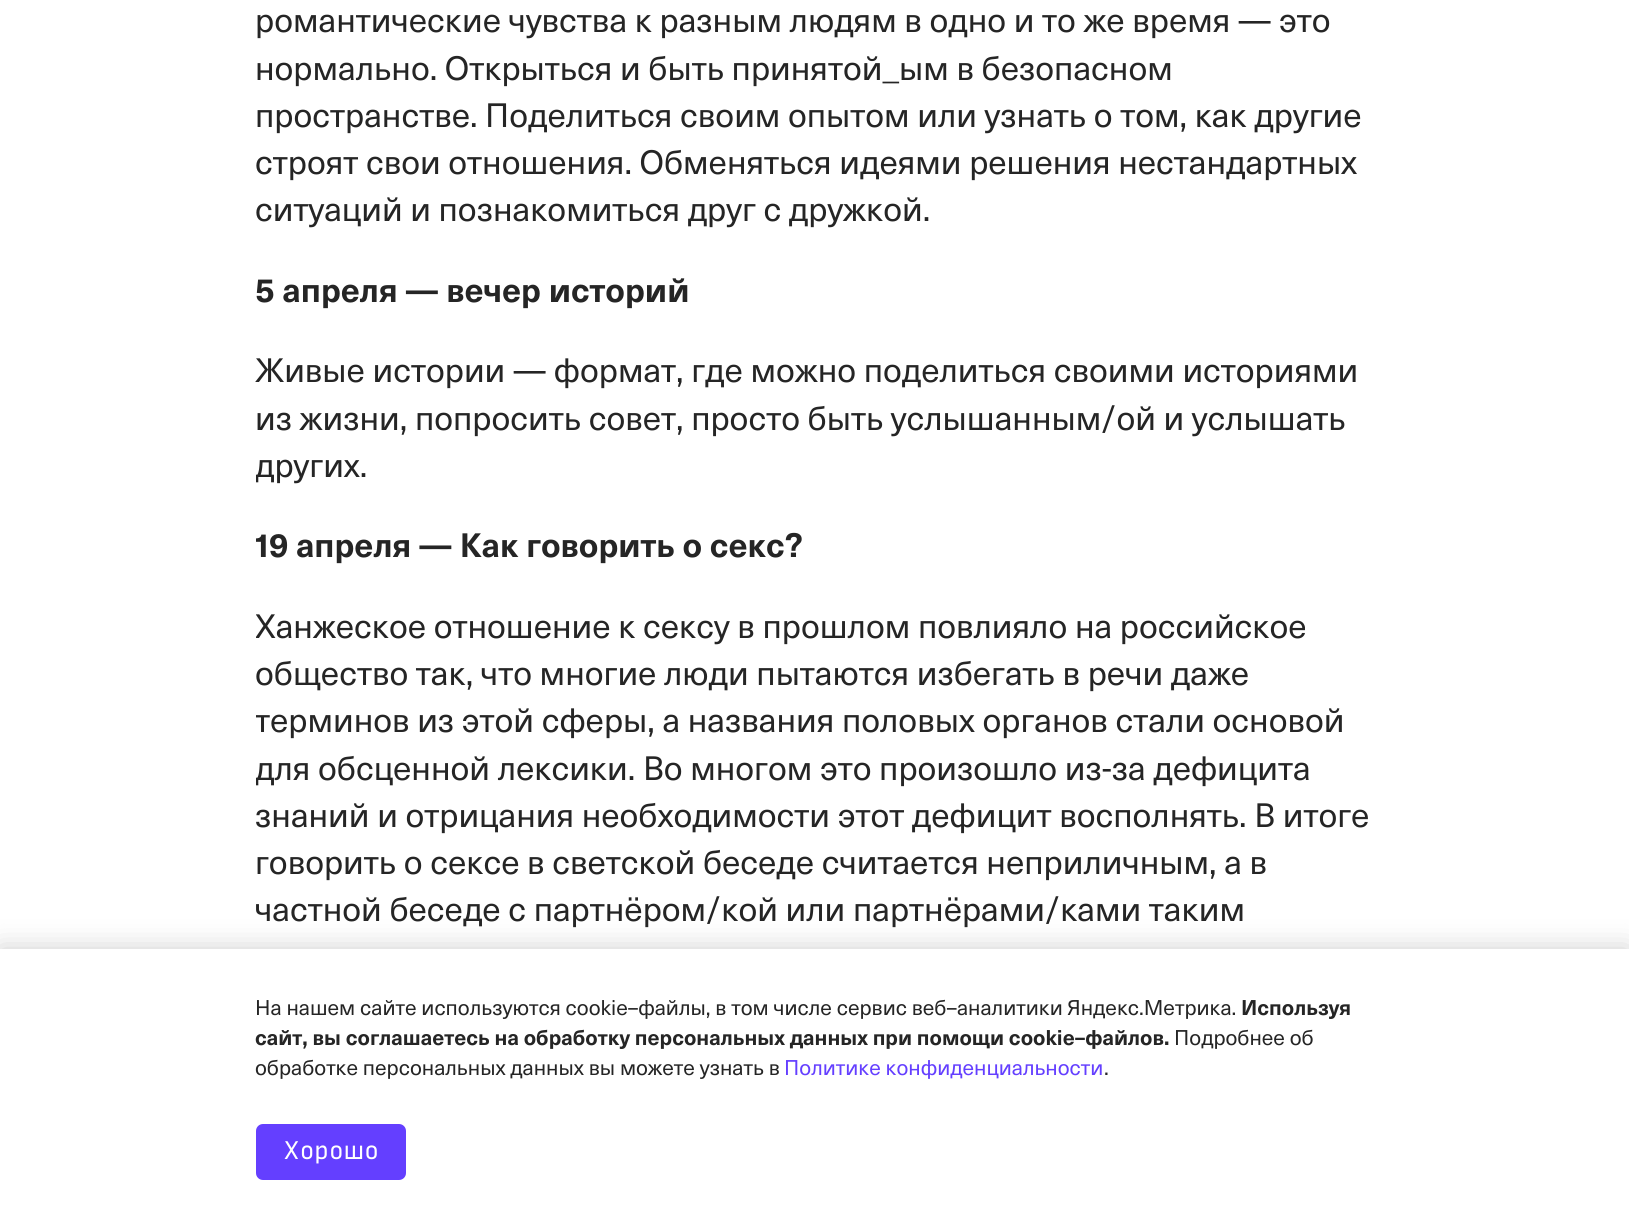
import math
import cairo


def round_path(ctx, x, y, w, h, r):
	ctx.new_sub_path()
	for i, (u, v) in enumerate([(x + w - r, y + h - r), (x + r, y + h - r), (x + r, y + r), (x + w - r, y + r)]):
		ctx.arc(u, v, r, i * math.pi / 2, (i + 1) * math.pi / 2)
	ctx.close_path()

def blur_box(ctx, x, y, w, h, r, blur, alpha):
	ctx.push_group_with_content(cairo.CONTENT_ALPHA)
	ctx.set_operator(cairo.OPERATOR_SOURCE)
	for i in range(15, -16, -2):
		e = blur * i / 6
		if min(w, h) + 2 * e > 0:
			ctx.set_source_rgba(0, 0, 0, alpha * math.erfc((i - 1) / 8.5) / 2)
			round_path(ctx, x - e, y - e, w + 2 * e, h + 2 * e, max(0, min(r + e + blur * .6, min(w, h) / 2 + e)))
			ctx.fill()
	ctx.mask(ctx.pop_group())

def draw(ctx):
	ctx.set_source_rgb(1, 1, 1)
	ctx.paint()
	ctx.select_font_face('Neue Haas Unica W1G')
	ctx.set_font_size(33.25)
	ctx.set_source_rgb(0.145, 0.145, 0.145)
	for x, y, s in [
		(255, 32, 'романтические чувства к разным людям в одно и то же время — это'),
		(255, 80, 'нормально. Открыться и быть принятой_ым в безопасном'),
		(255, 127, 'пространстве. Поделиться своим опытом или узнать о том, как другие'),
		(255, 174, 'строят свои отношения. Обменяться идеями решения нестандартных'),
		(255, 221, 'ситуаций и познакомиться друг с дружкой.'),
	]:
		ctx.move_to(x, y)
		ctx.show_text(s)
	ctx.select_font_face('Neue Haas Unica W1G', cairo.FONT_SLANT_NORMAL, cairo.FONT_WEIGHT_BOLD)
	ctx.move_to(255, 302)
	ctx.show_text('5 апреля — вечер историй')
	ctx.select_font_face('Neue Haas Unica W1G')
	ctx.move_to(255, 382)
	ctx.show_text('Живые истории — формат, где можно поделиться своими историями')
	ctx.move_to(255, 430)
	ctx.show_text('из жизни, попросить совет, просто быть услышанным/ой и услышать')
	ctx.save()
	ctx.rectangle(256, 0, 1120, 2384)
	ctx.clip()
	ctx.move_to(255, 477)
	ctx.show_text('других.')
	ctx.select_font_face('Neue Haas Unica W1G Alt', cairo.FONT_SLANT_NORMAL, cairo.FONT_WEIGHT_BOLD)
	ctx.move_to(255, 557)
	ctx.show_text('19 апреля — Как говорить о секс?')
	ctx.select_font_face('Neue Haas Unica W1G')
	ctx.move_to(255, 638)
	ctx.show_text('Ханжеское отношение к сексу в прошлом повлияло на российское')
	ctx.restore()
	ctx.move_to(255, 685)
	ctx.show_text('общество так, что многие люди пытаются избегать в речи даже')
	ctx.save()
	ctx.rectangle(256, 0, 1120, 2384)
	ctx.clip()
	ctx.move_to(255, 732)
	ctx.show_text('терминов из этой сферы, а названия половых органов стали основой')
	ctx.move_to(255, 780)
	ctx.show_text('для обсценной лексики. Во многом это произошло из-за дефицита')
	ctx.restore()
	ctx.move_to(255, 827)
	ctx.show_text('знаний и отрицания необходимости этот дефицит восполнять. В итоге')
	ctx.move_to(255, 874)
	ctx.show_text('говорить о сексе в светской беседе считается неприличным, а в')
	ctx.save()
	ctx.rectangle(256, 0, 1120, 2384)
	ctx.clip()
	ctx.move_to(255, 921)
	ctx.show_text('частной беседе с партнёром/кой или партнёрами/ками таким')
	ctx.restore()
	ctx.set_source_rgb(0, 0, 0)
	blur_box(ctx, 0, 949, 1629, 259, 0, 14, 0.2)
	ctx.set_source_rgb(1, 1, 1)
	ctx.rectangle(0, 949, 1629, 258)
	ctx.fill()
	ctx.set_font_size(21)
	ctx.set_source_rgb(0.145, 0.145, 0.145)
	ctx.move_to(255, 1015)
	ctx.show_text('На нашем сайте используются cookie–файлы, в том числе сервис веб–аналитики Яндекс.Метрика.')
	ctx.select_font_face('Neue Haas Unica W1G', cairo.FONT_SLANT_NORMAL, cairo.FONT_WEIGHT_BOLD)
	ctx.move_to(1241, 1015)
	ctx.show_text('Используя')
	ctx.move_to(255, 1045)
	ctx.show_text('сайт, вы соглашаетесь на обработку персональных данных при помощи cookie–файлов.')
	ctx.select_font_face('Neue Haas Unica W1G')
	ctx.move_to(1174, 1045)
	ctx.show_text('Подробнее об')
	ctx.move_to(255, 1075)
	ctx.show_text('обработке персональных данных вы можете узнать в')
	ctx.set_source_rgb(0.392, 0.247, 1)
	ctx.move_to(784, 1075)
	ctx.show_text('Политике конфиденциальности')
	ctx.set_source_rgb(0.145, 0.145, 0.145)
	ctx.move_to(1104, 1075)
	ctx.show_text('.')
	ctx.set_source_rgb(0.392, 0.247, 1)
	round_path(ctx, 256, 1124, 150, 56, 7)
	ctx.fill()
	ctx.select_font_face('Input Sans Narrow')
	ctx.set_font_size(24.5)
	ctx.set_source_rgb(1, 1, 1)
	ctx.move_to(283, 1159)
	ctx.show_text('Хорошо')


surface = cairo.ImageSurface(cairo.FORMAT_RGB24, 1629, 1207)
ctx = cairo.Context(surface)
options = cairo.FontOptions()
options.set_hint_metrics(cairo.HINT_METRICS_OFF)
options.set_hint_style(cairo.HINT_STYLE_NONE)
ctx.set_font_options(options)
ctx.set_miter_limit(4)
draw(ctx)
surface.write_to_png('image.png')
